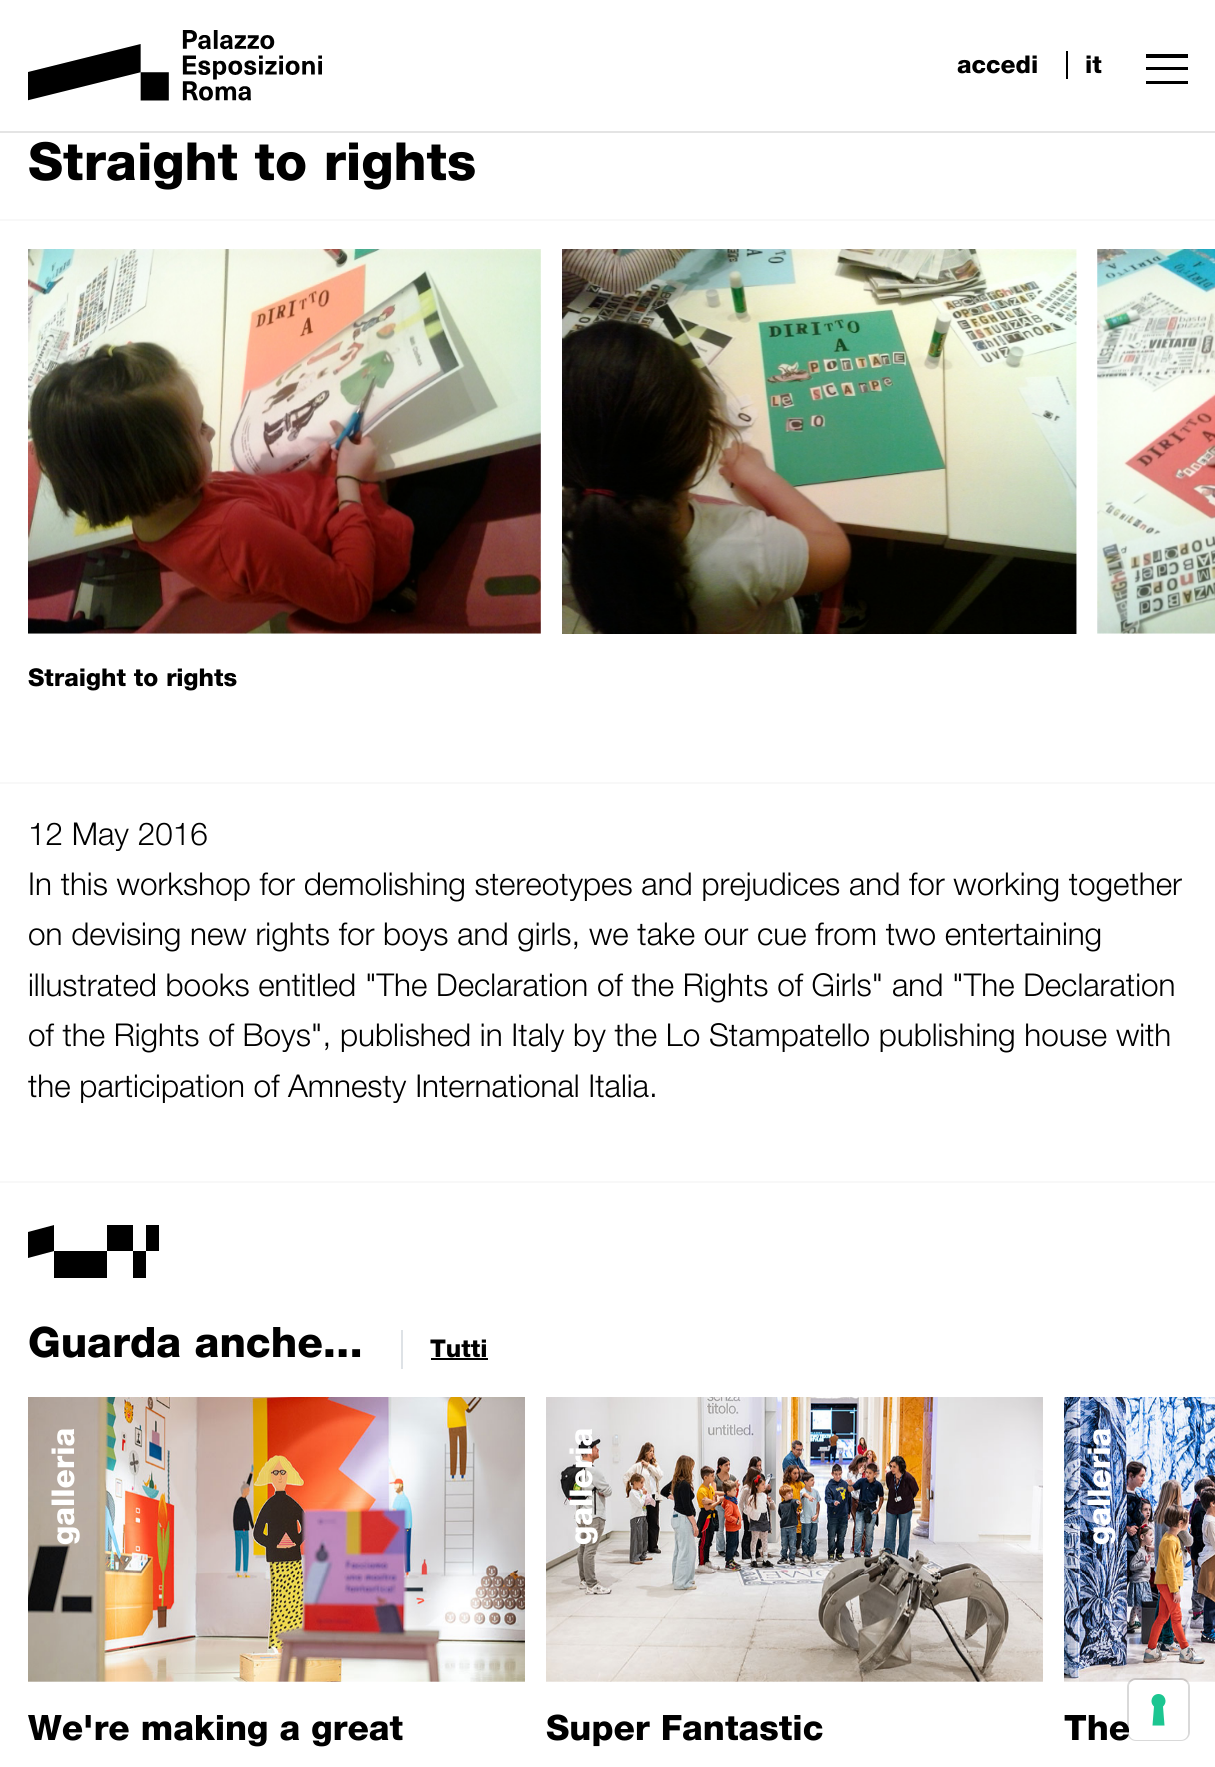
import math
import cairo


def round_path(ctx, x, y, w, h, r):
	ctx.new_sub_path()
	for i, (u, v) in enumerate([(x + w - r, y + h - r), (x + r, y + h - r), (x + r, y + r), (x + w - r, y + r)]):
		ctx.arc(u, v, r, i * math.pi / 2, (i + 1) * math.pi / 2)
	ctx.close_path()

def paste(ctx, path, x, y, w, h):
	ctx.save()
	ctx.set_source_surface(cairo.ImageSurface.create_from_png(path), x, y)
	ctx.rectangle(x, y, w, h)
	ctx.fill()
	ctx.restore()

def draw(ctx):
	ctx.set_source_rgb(1, 1, 1)
	ctx.paint()
	ctx.set_source_rgb(0.894, 0.894, 0.894)
	ctx.rectangle(0, 131, 1215, 2)
	ctx.fill()
	paste(ctx, 'media/1.png', 28, 30, 294, 71)
	ctx.select_font_face('Helvetica Neue Black')
	ctx.set_font_size(24.5)
	ctx.set_source_rgb(0, 0, 0)
	ctx.move_to(957, 73)
	ctx.show_text('accedi')
	ctx.move_to(1085, 73)
	ctx.show_text('it')
	ctx.rectangle(1066, 51, 2, 28)
	ctx.rectangle(1146, 54, 42, 4)
	ctx.rectangle(1146, 67, 42, 3)
	ctx.rectangle(1146, 81, 42, 3)
	ctx.fill()
	ctx.set_font_size(52.5)
	ctx.move_to(28, 180)
	ctx.show_text('Straight to rights')
	ctx.set_source_rgb(0.969, 0.969, 0.969)
	ctx.rectangle(0, 219, 1215, 2)
	ctx.fill()
	paste(ctx, 'media/2.png', 28, 249, 513, 385)
	paste(ctx, 'media/3.png', 562, 249, 515, 385)
	paste(ctx, 'media/4.png', 1097, 249, 118, 385)
	ctx.set_font_size(24.5)
	ctx.set_source_rgb(0, 0, 0)
	ctx.move_to(28, 686)
	ctx.show_text('Straight to rights')
	ctx.set_source_rgb(0.969, 0.969, 0.969)
	ctx.rectangle(0, 782, 1215, 2)
	ctx.fill()
	ctx.select_font_face('Helvetica Neue Light')
	ctx.set_font_size(31.5)
	ctx.set_source_rgb(0, 0, 0)
	for x, y, s in [
		(28, 845, '12 May 2016'),
		(28, 895, 'In this workshop for demolishing stereotypes and prejudices and for working together'),
		(28, 945, 'on devising new rights for boys and girls, we take our cue from two entertaining'),
		(28, 996, 'illustrated books entitled "The Declaration of the Rights of Girls" and "The Declaration'),
		(28, 1046, 'of the Rights of Boys", published in Italy by the Lo Stampatello publishing house with'),
		(28, 1097, 'the participation of Amnesty International Italia.'),
	]:
		ctx.move_to(x, y)
		ctx.show_text(s)
	ctx.set_source_rgb(0.969, 0.969, 0.969)
	ctx.rectangle(0, 1181, 1215, 2)
	ctx.fill()
	ctx.set_source_rgb(0, 0, 0)
	ctx.new_path()
	ctx.move_to(54, 1225)
	ctx.line_to(28, 1232)
	ctx.line_to(28, 1258)
	ctx.line_to(54, 1251)
	ctx.line_to(54, 1278)
	ctx.line_to(107, 1278)
	ctx.line_to(107, 1251)
	ctx.line_to(54, 1251)
	ctx.close_path()
	ctx.fill()
	ctx.rectangle(107, 1225, 26, 26)
	ctx.rectangle(146, 1225, 13, 26)
	ctx.rectangle(133, 1251, 13, 27)
	ctx.fill()
	ctx.select_font_face('Helvetica Neue Black')
	ctx.set_font_size(42)
	ctx.move_to(28, 1357)
	ctx.show_text('Guarda anche...')
	ctx.set_source_rgb(0.871, 0.886, 0.902)
	ctx.rectangle(401, 1330, 2, 39)
	ctx.fill()
	ctx.set_font_size(24.5)
	ctx.set_source_rgb(0, 0, 0)
	ctx.move_to(430, 1357)
	ctx.show_text('Tutti')
	ctx.rectangle(431, 1358, 57, 2)
	ctx.fill()
	paste(ctx, 'media/5.png', 28, 1397, 497, 285)
	ctx.set_font_size(31.5)
	ctx.set_source_rgb(1, 1, 1)
	ctx.save()
	ctx.translate(74, 1545)
	ctx.rotate(-90 * math.pi / 180)
	ctx.move_to(0, 0)
	ctx.show_text('galleria')
	ctx.restore()
	ctx.set_font_size(35)
	ctx.set_source_rgb(0, 0, 0)
	ctx.move_to(28, 1740)
	ctx.show_text('We\'re making a great')
	paste(ctx, 'media/6.png', 546, 1397, 497, 285)
	ctx.set_font_size(31.5)
	ctx.set_source_rgb(1, 1, 1)
	ctx.save()
	ctx.translate(592, 1545)
	ctx.rotate(-90 * math.pi / 180)
	ctx.move_to(0, 0)
	ctx.show_text('galleria')
	ctx.restore()
	ctx.set_font_size(35)
	ctx.set_source_rgb(0, 0, 0)
	ctx.move_to(546, 1740)
	ctx.show_text('Super Fantastic')
	paste(ctx, 'media/7.png', 1064, 1397, 151, 285)
	ctx.set_font_size(31.5)
	ctx.set_source_rgb(1, 1, 1)
	ctx.save()
	ctx.translate(1110, 1545)
	ctx.rotate(-90 * math.pi / 180)
	ctx.move_to(0, 0)
	ctx.show_text('galleria')
	ctx.restore()
	ctx.set_font_size(35)
	ctx.set_source_rgb(0, 0, 0)
	ctx.move_to(1064, 1740)
	ctx.show_text('The')
	round_path(ctx, 1128, 1679, 61, 61, 8)
	ctx.set_source_rgba(0, 0, 0, 0.15)
	ctx.stroke()
	ctx.set_source_rgb(1, 1, 1)
	round_path(ctx, 1129, 1680, 59, 60, 7)
	ctx.fill()
	ctx.set_source_rgb(0.11, 0.776, 0.569)
	ctx.set_fill_rule(cairo.FILL_RULE_EVEN_ODD)
	ctx.new_path()
	ctx.move_to(1158.5, 1694)
	ctx.curve_to(1165, 1694, 1168, 1702, 1163, 1706.5)
	ctx.line_to(1164.5, 1725.5)
	ctx.line_to(1152.5, 1725.5)
	ctx.line_to(1154, 1706.5)
	ctx.curve_to(1149, 1702, 1152, 1694, 1158.5, 1694)
	ctx.close_path()
	ctx.fill()


surface = cairo.ImageSurface(cairo.FORMAT_RGB24, 1215, 1767)
ctx = cairo.Context(surface)
options = cairo.FontOptions()
options.set_hint_metrics(cairo.HINT_METRICS_OFF)
options.set_hint_style(cairo.HINT_STYLE_NONE)
ctx.set_font_options(options)
ctx.set_miter_limit(4)
draw(ctx)
surface.write_to_png('image.png')
